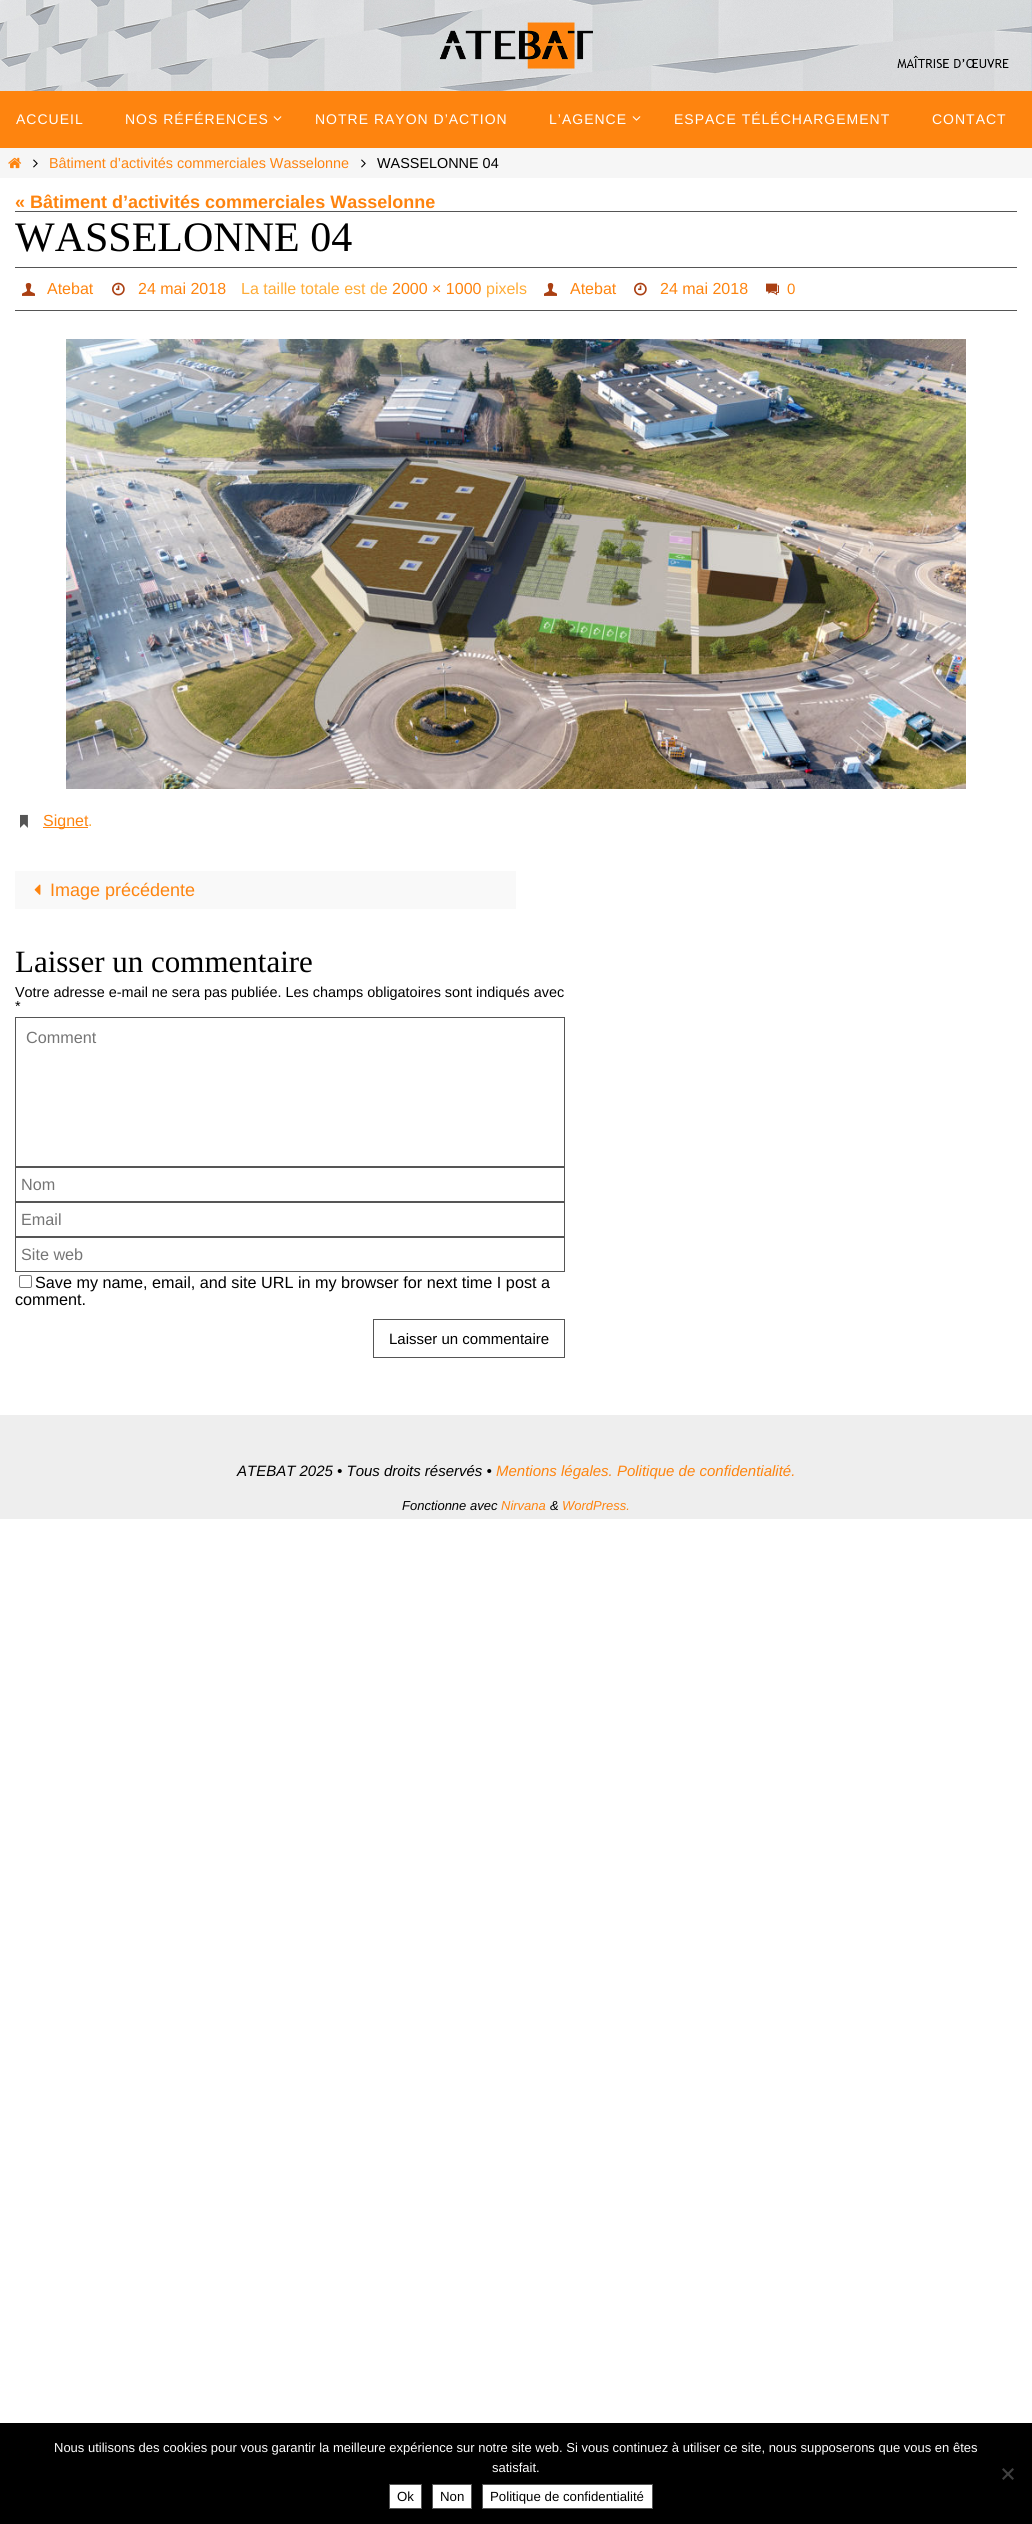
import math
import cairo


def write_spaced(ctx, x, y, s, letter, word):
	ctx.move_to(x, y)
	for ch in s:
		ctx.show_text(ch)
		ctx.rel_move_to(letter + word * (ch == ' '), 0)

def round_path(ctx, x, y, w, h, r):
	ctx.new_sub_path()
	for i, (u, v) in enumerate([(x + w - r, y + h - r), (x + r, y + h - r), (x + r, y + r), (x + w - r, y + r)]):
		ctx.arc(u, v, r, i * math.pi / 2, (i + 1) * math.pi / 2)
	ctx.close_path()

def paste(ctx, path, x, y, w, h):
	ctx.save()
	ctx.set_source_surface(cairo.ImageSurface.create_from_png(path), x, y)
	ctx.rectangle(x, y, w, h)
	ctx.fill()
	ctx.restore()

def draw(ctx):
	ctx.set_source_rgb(1, 1, 1)
	ctx.paint()
	paste(ctx, 'media/1.png', 0, 0, 1032, 91)
	ctx.set_source_rgb(0.996, 0.518, 0.059)
	ctx.rectangle(0, 91, 1032, 57)
	ctx.fill()
	ctx.select_font_face('Liberation Sans')
	ctx.set_font_size(14)
	ctx.set_source_rgb(1, 1, 1)
	write_spaced(ctx, 16, 124, 'ACCUEIL', 1, 0)
	write_spaced(ctx, 125, 124, 'NOS RÉFÉRENCES', 1, 0)
	paste(ctx, 'media/2.png', 273, 116, 9, 5)
	write_spaced(ctx, 315, 124, 'NOTRE RAYON D’ACTION', 1, 0)
	write_spaced(ctx, 549, 124, 'L’AGENCE', 1, 0)
	paste(ctx, 'media/2.png', 632, 116, 9, 5)
	write_spaced(ctx, 674, 124, 'ESPACE TÉLÉCHARGEMENT', 1, 0)
	write_spaced(ctx, 932, 124, 'CONTACT', 1, 0)
	ctx.set_source_rgb(0.961, 0.961, 0.961)
	ctx.rectangle(0, 148, 1032, 30)
	ctx.fill()
	paste(ctx, 'media/3.png', 8, 157, 14, 12)
	paste(ctx, 'media/4.png', 33, 159, 5, 9)
	ctx.set_font_size(14.4)
	ctx.set_source_rgb(0.996, 0.518, 0.059)
	ctx.move_to(49, 168)
	ctx.show_text('Bâtiment d’activités commerciales Wasselonne')
	paste(ctx, 'media/4.png', 361, 159, 5, 9)
	ctx.set_source_rgb(0, 0, 0)
	ctx.move_to(377, 168)
	ctx.show_text('WASSELONNE 04')
	ctx.set_source_rgb(0.333, 0.333, 0.333)
	ctx.rectangle(15, 211, 1002, 1)
	ctx.fill()
	ctx.select_font_face('Liberation Sans', cairo.FONT_SLANT_NORMAL, cairo.FONT_WEIGHT_BOLD)
	ctx.set_font_size(18)
	ctx.set_source_rgb(0.996, 0.518, 0.059)
	ctx.move_to(15, 208)
	ctx.show_text('« Bâtiment d’activités commerciales Wasselonne')
	ctx.select_font_face('Liberation Serif')
	ctx.set_font_size(42)
	ctx.set_source_rgb(0, 0, 0)
	ctx.move_to(15, 251)
	ctx.show_text('WASSELONNE 04')
	ctx.set_source_rgb(0.333, 0.333, 0.333)
	ctx.rectangle(15, 267, 1002, 1)
	ctx.fill()
	ctx.rectangle(15, 310, 1002, 1)
	ctx.fill()
	paste(ctx, 'media/5.png', 22, 282, 13, 14)
	ctx.select_font_face('Liberation Sans')
	ctx.set_font_size(16)
	ctx.set_source_rgb(0.996, 0.518, 0.059)
	ctx.move_to(47, 294)
	ctx.show_text('Atebat')
	paste(ctx, 'media/6.png', 112, 282, 13, 14)
	ctx.move_to(138, 294)
	ctx.show_text('24 mai 2018')
	ctx.set_source_rgb(1, 0.675, 0.216)
	ctx.move_to(241, 294)
	ctx.show_text('La taille totale est de')
	ctx.set_source_rgb(0.996, 0.518, 0.059)
	ctx.move_to(392, 294)
	ctx.show_text('2000 × 1000')
	ctx.set_source_rgb(1, 0.675, 0.216)
	ctx.move_to(486, 294)
	ctx.show_text('pixels')
	paste(ctx, 'media/5.png', 544, 282, 13, 14)
	ctx.set_source_rgb(0.996, 0.518, 0.059)
	ctx.move_to(570, 294)
	ctx.show_text('Atebat')
	paste(ctx, 'media/6.png', 634, 282, 13, 14)
	ctx.move_to(660, 294)
	ctx.show_text('24 mai 2018')
	paste(ctx, 'media/7.png', 766, 283, 13, 13)
	ctx.set_font_size(15)
	ctx.move_to(787, 294)
	ctx.show_text('0')
	paste(ctx, 'media/8.png', 66, 339, 900, 450)
	paste(ctx, 'media/9.png', 20, 814, 8, 14)
	ctx.rectangle(43, 827, 45, 1)
	ctx.fill()
	ctx.set_font_size(16)
	ctx.move_to(43, 826)
	ctx.show_text('Signet')
	ctx.set_source_rgb(1, 0.675, 0.216)
	ctx.move_to(88, 826)
	ctx.show_text('.')
	ctx.set_source_rgb(0.973, 0.973, 0.973)
	ctx.rectangle(15, 871, 501, 38)
	ctx.fill()
	paste(ctx, 'media/10.png', 34, 884, 7, 11)
	ctx.set_font_size(18)
	ctx.set_source_rgb(0.996, 0.518, 0.059)
	ctx.move_to(50, 896)
	ctx.show_text('Image précédente')
	ctx.select_font_face('Liberation Serif')
	ctx.set_font_size(31)
	ctx.set_source_rgb(0, 0, 0)
	ctx.move_to(15, 972)
	ctx.show_text('Laisser un commentaire')
	ctx.select_font_face('Liberation Sans')
	ctx.set_font_size(14.4)
	ctx.move_to(15, 997)
	ctx.show_text('Votre adresse e-mail ne sera pas publiée. Les champs obligatoires sont indiqués avec')
	ctx.move_to(15, 1011)
	ctx.show_text('*')
	ctx.rectangle(15.5, 1017.5, 549, 149)
	ctx.set_source_rgb(0.333, 0.333, 0.333)
	ctx.set_line_width(1)
	ctx.stroke()
	ctx.set_font_size(16.2)
	ctx.set_source_rgb(0.459, 0.459, 0.459)
	ctx.move_to(26, 1043)
	ctx.show_text('Comment')
	ctx.rectangle(15.5, 1167.5, 549, 34)
	ctx.set_source_rgb(0.333, 0.333, 0.333)
	ctx.stroke()
	ctx.set_source_rgb(0.459, 0.459, 0.459)
	ctx.move_to(21, 1190)
	ctx.show_text('Nom')
	ctx.rectangle(15.5, 1202.5, 549, 34)
	ctx.set_source_rgb(0.333, 0.333, 0.333)
	ctx.stroke()
	ctx.set_source_rgb(0.459, 0.459, 0.459)
	ctx.move_to(21, 1225)
	ctx.show_text('Email')
	ctx.rectangle(15.5, 1237.5, 549, 34)
	ctx.set_source_rgb(0.333, 0.333, 0.333)
	ctx.stroke()
	ctx.set_source_rgb(0.459, 0.459, 0.459)
	ctx.move_to(21, 1260)
	ctx.show_text('Site web')
	round_path(ctx, 19.5, 1275.5, 12, 12, 1.5)
	ctx.set_source_rgb(0.463, 0.463, 0.463)
	ctx.stroke()
	ctx.set_source_rgb(0, 0, 0)
	ctx.move_to(35, 1288)
	ctx.show_text('Save my name, email, and site URL in my browser for next time I post a')
	ctx.move_to(15, 1305)
	ctx.show_text('comment.')
	ctx.rectangle(373.5, 1319.5, 191, 38)
	ctx.set_source_rgb(0.333, 0.333, 0.333)
	ctx.stroke()
	ctx.set_font_size(15)
	ctx.set_source_rgb(0, 0, 0)
	ctx.move_to(389, 1344)
	ctx.show_text('Laisser un commentaire')
	ctx.set_source_rgb(0.933, 0.933, 0.933)
	ctx.rectangle(0, 1415, 1032, 104)
	ctx.fill()
	ctx.select_font_face('Liberation Sans', cairo.FONT_SLANT_ITALIC)
	ctx.set_source_rgb(0, 0, 0)
	ctx.move_to(237, 1476)
	ctx.show_text('ATEBAT 2025 • Tous droits réservés •')
	ctx.set_source_rgb(0.996, 0.518, 0.059)
	ctx.move_to(496, 1476)
	ctx.show_text('Mentions légales. Politique de confidentialité.')
	ctx.set_font_size(13)
	ctx.set_source_rgb(0, 0, 0)
	ctx.move_to(402, 1510)
	ctx.show_text('Fonctionne avec')
	ctx.set_source_rgb(0.996, 0.518, 0.059)
	ctx.move_to(501, 1510)
	ctx.show_text('Nirvana')
	ctx.set_source_rgb(0, 0, 0)
	ctx.move_to(550, 1510)
	ctx.show_text('&')
	ctx.set_source_rgb(0.996, 0.518, 0.059)
	ctx.move_to(562, 1510)
	ctx.show_text('WordPress.')
	ctx.set_source_rgb(0, 0, 0)
	ctx.rectangle(0, 2423, 1032, 101)
	ctx.fill()
	ctx.select_font_face('Liberation Sans')
	ctx.set_source_rgb(1, 1, 1)
	ctx.move_to(54, 2452)
	ctx.show_text('Nous utilisons des cookies pour vous garantir la meilleure expérience sur notre site web. Si vous continuez à utiliser ce site, nous supposerons que vous en êtes')
	ctx.move_to(492, 2472)
	ctx.show_text('satisfait.')
	ctx.set_source_rgb(0.251, 0.251, 0.251)
	ctx.new_path()
	ctx.move_to(1012.5, 2468)
	ctx.line_to(1014, 2469.5)
	ctx.line_to(1003.5, 2480)
	ctx.line_to(1002, 2478.5)
	ctx.close_path()
	ctx.fill()
	ctx.new_path()
	ctx.move_to(1002, 2469.5)
	ctx.line_to(1003.5, 2468)
	ctx.line_to(1014, 2478.5)
	ctx.line_to(1012.5, 2480)
	ctx.close_path()
	ctx.fill()
	ctx.set_source_rgb(1, 1, 1)
	ctx.rectangle(389.5, 2484.5, 32, 24)
	ctx.fill_preserve()
	ctx.set_source_rgb(0.333, 0.333, 0.333)
	ctx.stroke()
	ctx.set_font_size(13.25)
	ctx.set_source_rgb(0, 0, 0)
	ctx.move_to(397, 2501)
	ctx.show_text('Ok')
	ctx.set_source_rgb(1, 1, 1)
	ctx.rectangle(432.5, 2484.5, 39, 24)
	ctx.fill_preserve()
	ctx.set_source_rgb(0.333, 0.333, 0.333)
	ctx.stroke()
	ctx.set_source_rgb(0, 0, 0)
	ctx.move_to(440, 2501)
	ctx.show_text('Non')
	ctx.set_source_rgb(1, 1, 1)
	ctx.rectangle(482.5, 2484.5, 170, 24)
	ctx.fill_preserve()
	ctx.set_source_rgb(0.333, 0.333, 0.333)
	ctx.stroke()
	ctx.set_source_rgb(0, 0, 0)
	ctx.move_to(490, 2501)
	ctx.show_text('Politique de confidentialité')


surface = cairo.ImageSurface(cairo.FORMAT_RGB24, 1032, 2524)
ctx = cairo.Context(surface)
options = cairo.FontOptions()
options.set_hint_metrics(cairo.HINT_METRICS_OFF)
options.set_hint_style(cairo.HINT_STYLE_NONE)
ctx.set_font_options(options)
ctx.set_miter_limit(4)
draw(ctx)
surface.write_to_png('image.png')
